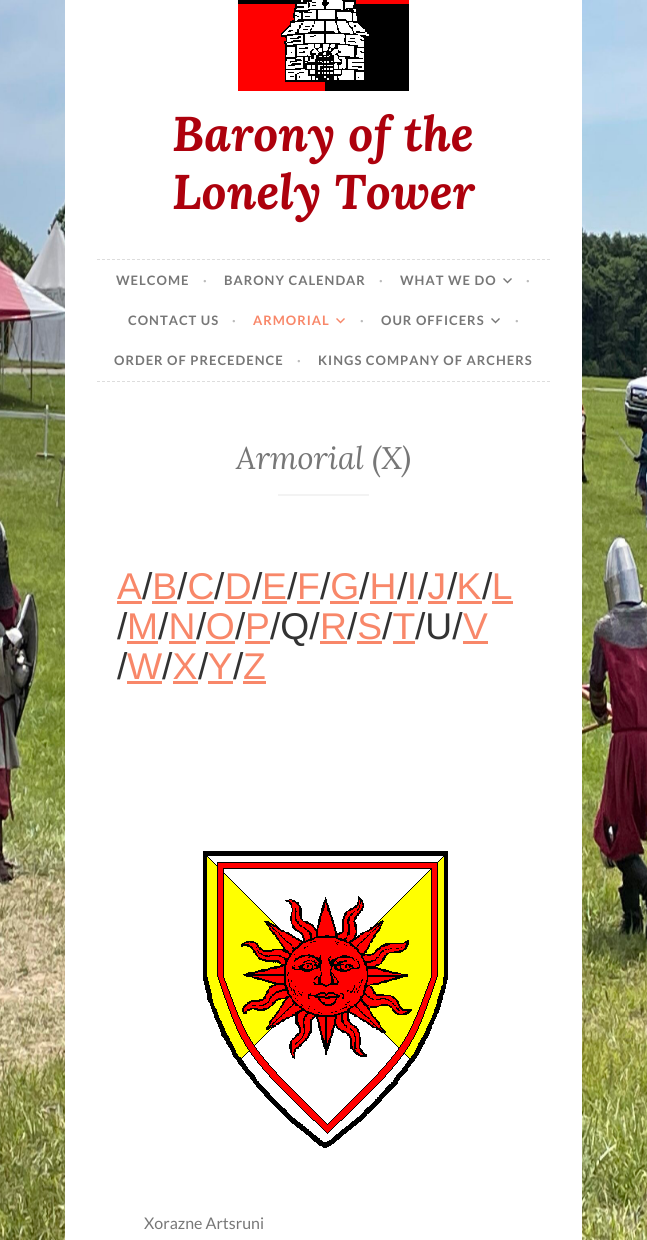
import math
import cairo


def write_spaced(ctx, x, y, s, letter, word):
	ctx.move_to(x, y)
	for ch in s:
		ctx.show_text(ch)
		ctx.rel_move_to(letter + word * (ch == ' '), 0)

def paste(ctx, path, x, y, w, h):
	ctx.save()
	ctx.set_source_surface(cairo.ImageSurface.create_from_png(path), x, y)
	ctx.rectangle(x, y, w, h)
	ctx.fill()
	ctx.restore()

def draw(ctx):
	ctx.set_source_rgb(1, 1, 1)
	ctx.paint()
	paste(ctx, 'media/1.png', 0, 0, 647, 1240)
	ctx.set_source_rgb(1, 1, 1)
	ctx.rectangle(65, 0, 517, 1240)
	ctx.fill()
	paste(ctx, 'media/2.png', 238, 0, 171, 91)
	ctx.select_font_face('Lora', cairo.FONT_SLANT_ITALIC, cairo.FONT_WEIGHT_BOLD)
	ctx.set_font_size(48.75)
	ctx.set_source_rgb(0.678, 0.004, 0.051)
	ctx.move_to(172, 151)
	ctx.show_text('Barony of the')
	ctx.move_to(172, 209)
	ctx.show_text('Lonely Tower')
	ctx.new_path()
	ctx.move_to(97, 259.5)
	ctx.line_to(550, 259.5)
	ctx.set_source_rgb(0.867, 0.867, 0.867)
	ctx.set_line_width(1)
	ctx.set_dash([3, 2])
	ctx.stroke()
	ctx.new_path()
	ctx.move_to(97, 381.5)
	ctx.line_to(550, 381.5)
	ctx.stroke()
	ctx.select_font_face('Lato', cairo.FONT_SLANT_NORMAL, cairo.FONT_WEIGHT_BOLD)
	ctx.set_font_size(13)
	ctx.set_source_rgb(0.467, 0.467, 0.467)
	write_spaced(ctx, 116, 285, 'WELCOME', 1, 0)
	ctx.set_source_rgb(0.733, 0.733, 0.733)
	write_spaced(ctx, 203, 285, '·', 1, 0)
	ctx.set_source_rgb(0.467, 0.467, 0.467)
	write_spaced(ctx, 224, 285, 'BARONY CALENDAR', 1, 0)
	ctx.set_source_rgb(0.733, 0.733, 0.733)
	write_spaced(ctx, 379, 285, '·', 1, 0)
	ctx.set_source_rgb(0.467, 0.467, 0.467)
	write_spaced(ctx, 400, 285, 'WHAT WE DO', 1, 0)
	paste(ctx, 'media/3.png', 503, 278, 9, 6)
	ctx.set_source_rgb(0.733, 0.733, 0.733)
	write_spaced(ctx, 526, 285, '·', 1, 0)
	ctx.set_source_rgb(0.467, 0.467, 0.467)
	write_spaced(ctx, 128, 325, 'CONTACT US', 1, 0)
	ctx.set_source_rgb(0.733, 0.733, 0.733)
	write_spaced(ctx, 232, 325, '·', 1, 0)
	ctx.set_source_rgb(0.969, 0.529, 0.412)
	write_spaced(ctx, 253, 325, 'ARMORIAL', 1, 0)
	paste(ctx, 'media/4.png', 336, 318, 9, 6)
	ctx.set_source_rgb(0.733, 0.733, 0.733)
	write_spaced(ctx, 360, 325, '·', 1, 0)
	ctx.set_source_rgb(0.467, 0.467, 0.467)
	write_spaced(ctx, 381, 325, 'OUR OFFICERS', 1, 0)
	paste(ctx, 'media/3.png', 491, 318, 9, 6)
	ctx.set_source_rgb(0.733, 0.733, 0.733)
	write_spaced(ctx, 515, 325, '·', 1, 0)
	ctx.set_source_rgb(0.467, 0.467, 0.467)
	write_spaced(ctx, 114, 365, 'ORDER OF PRECEDENCE', 1, 0)
	ctx.set_source_rgb(0.733, 0.733, 0.733)
	write_spaced(ctx, 297, 365, '·', 1, 0)
	ctx.set_source_rgb(0.467, 0.467, 0.467)
	write_spaced(ctx, 318, 365, 'KINGS COMPANY OF ARCHERS', 1, 0)
	ctx.select_font_face('Lora', cairo.FONT_SLANT_ITALIC)
	ctx.set_font_size(31.25)
	ctx.move_to(236, 469)
	ctx.show_text('Armorial (X)')
	ctx.set_source_rgb(0.953, 0.953, 0.953)
	ctx.rectangle(278, 494, 91, 2)
	ctx.fill()
	ctx.select_font_face('Liberation Sans')
	ctx.set_font_size(37.25)
	ctx.set_source_rgb(0.969, 0.529, 0.412)
	ctx.move_to(117, 599)
	ctx.show_text('A B C D E F G H I J K L')
	ctx.set_source_rgb(0.2, 0.2, 0.2)
	for x, y, s in [
		(142, 599, '/'),
		(177, 599, '/'),
		(214, 599, '/'),
		(252, 599, '/'),
		(287, 599, '/'),
		(320, 599, '/'),
		(359, 599, '/'),
		(397, 599, '/ /'),
		(447, 599, '/'),
		(482, 599, '/'),
	]:
		ctx.move_to(x, y)
		ctx.show_text(s)
	ctx.set_source_rgb(0.969, 0.529, 0.412)
	ctx.rectangle(117, 601, 25, 3)
	ctx.rectangle(152, 601, 25, 3)
	ctx.rectangle(187, 601, 27, 3)
	ctx.rectangle(225, 601, 27, 3)
	ctx.rectangle(262, 601, 25, 3)
	ctx.rectangle(297, 601, 23, 3)
	ctx.rectangle(330, 601, 29, 3)
	ctx.rectangle(370, 601, 27, 3)
	ctx.rectangle(407, 601, 11, 3)
	ctx.rectangle(428, 601, 19, 3)
	ctx.rectangle(457, 601, 25, 3)
	ctx.rectangle(492, 601, 21, 3)
	ctx.fill()
	ctx.set_source_rgb(0.2, 0.2, 0.2)
	ctx.move_to(117, 639)
	ctx.show_text('/')
	ctx.set_source_rgb(0.969, 0.529, 0.412)
	ctx.move_to(127, 639)
	ctx.show_text('M N O P')
	ctx.set_source_rgb(0.2, 0.2, 0.2)
	for x, y, s in [
		(158, 639, '/'),
		(196, 639, '/'),
		(235, 639, '/'),
		(270, 639, '/Q/'),
	]:
		ctx.move_to(x, y)
		ctx.show_text(s)
	ctx.set_source_rgb(0.969, 0.529, 0.412)
	ctx.rectangle(245, 641, 25, 3)
	ctx.fill()
	ctx.rectangle(320, 641, 27, 3)
	ctx.fill()
	ctx.move_to(320, 639)
	ctx.show_text('R S T')
	ctx.set_source_rgb(0.2, 0.2, 0.2)
	for x, y, s in [
		(347, 639, '/'),
		(382, 639, '/'),
		(415, 639, '/U/'),
	]:
		ctx.move_to(x, y)
		ctx.show_text(s)
	ctx.set_source_rgb(0.969, 0.529, 0.412)
	ctx.rectangle(127, 641, 31, 3)
	ctx.rectangle(169, 641, 27, 3)
	ctx.rectangle(206, 641, 29, 3)
	ctx.rectangle(357, 641, 25, 3)
	ctx.rectangle(393, 641, 22, 3)
	ctx.fill()
	ctx.move_to(463, 639)
	ctx.show_text('V')
	ctx.rectangle(463, 641, 25, 3)
	ctx.fill()
	ctx.set_source_rgb(0.2, 0.2, 0.2)
	ctx.move_to(117, 679)
	ctx.show_text('/')
	ctx.set_source_rgb(0.969, 0.529, 0.412)
	ctx.move_to(127, 679)
	ctx.show_text('W X Y Z')
	ctx.set_source_rgb(0.2, 0.2, 0.2)
	for x, y, s in [
		(162, 679, '/'),
		(198, 679, '/'),
		(233, 679, '/'),
	]:
		ctx.move_to(x, y)
		ctx.show_text(s)
	ctx.set_source_rgb(0.969, 0.529, 0.412)
	ctx.rectangle(127, 681, 35, 3)
	ctx.rectangle(173, 681, 25, 3)
	ctx.rectangle(208, 681, 25, 3)
	ctx.rectangle(243, 681, 23, 3)
	ctx.fill()
	paste(ctx, 'media/5.png', 203, 851, 245, 297)
	ctx.select_font_face('Lato')
	ctx.set_font_size(16)
	ctx.set_source_rgb(0.467, 0.467, 0.467)
	ctx.move_to(144, 1229)
	ctx.show_text('Xorazne Artsruni')


surface = cairo.ImageSurface(cairo.FORMAT_RGB24, 647, 1240)
ctx = cairo.Context(surface)
options = cairo.FontOptions()
options.set_hint_metrics(cairo.HINT_METRICS_OFF)
options.set_hint_style(cairo.HINT_STYLE_NONE)
ctx.set_font_options(options)
ctx.set_miter_limit(4)
draw(ctx)
surface.write_to_png('image.png')
